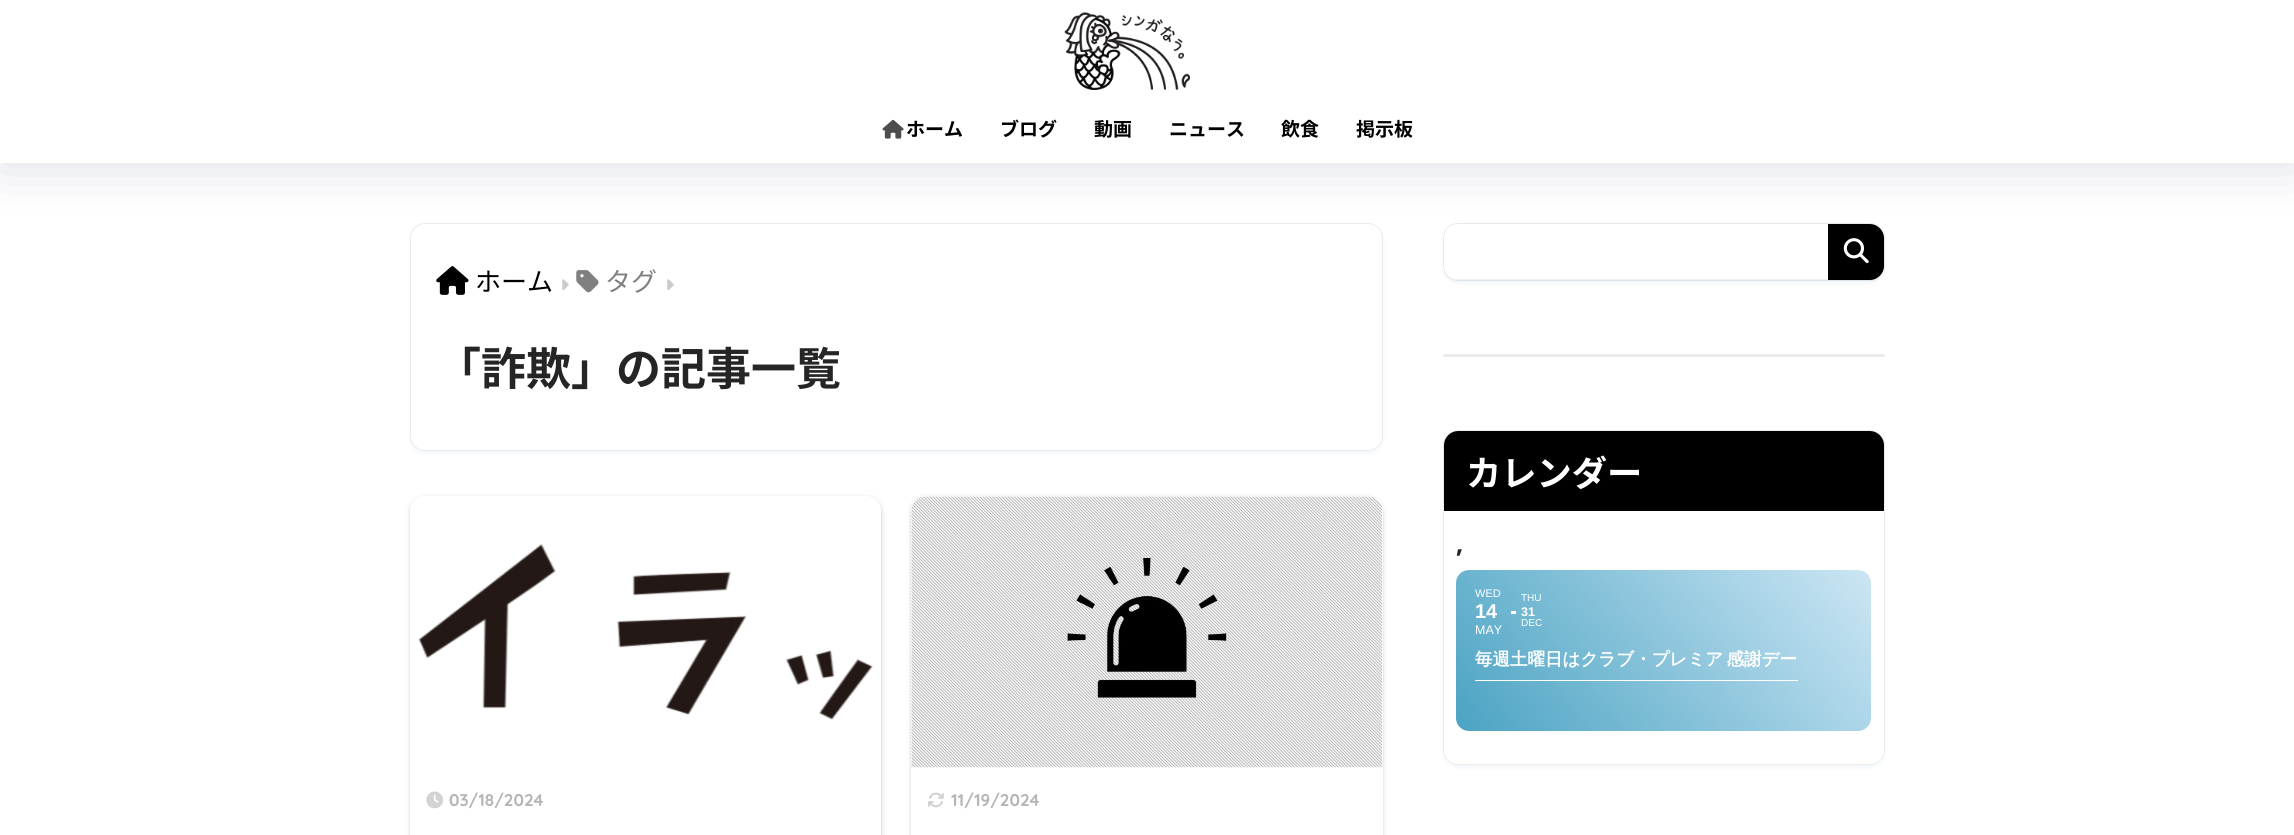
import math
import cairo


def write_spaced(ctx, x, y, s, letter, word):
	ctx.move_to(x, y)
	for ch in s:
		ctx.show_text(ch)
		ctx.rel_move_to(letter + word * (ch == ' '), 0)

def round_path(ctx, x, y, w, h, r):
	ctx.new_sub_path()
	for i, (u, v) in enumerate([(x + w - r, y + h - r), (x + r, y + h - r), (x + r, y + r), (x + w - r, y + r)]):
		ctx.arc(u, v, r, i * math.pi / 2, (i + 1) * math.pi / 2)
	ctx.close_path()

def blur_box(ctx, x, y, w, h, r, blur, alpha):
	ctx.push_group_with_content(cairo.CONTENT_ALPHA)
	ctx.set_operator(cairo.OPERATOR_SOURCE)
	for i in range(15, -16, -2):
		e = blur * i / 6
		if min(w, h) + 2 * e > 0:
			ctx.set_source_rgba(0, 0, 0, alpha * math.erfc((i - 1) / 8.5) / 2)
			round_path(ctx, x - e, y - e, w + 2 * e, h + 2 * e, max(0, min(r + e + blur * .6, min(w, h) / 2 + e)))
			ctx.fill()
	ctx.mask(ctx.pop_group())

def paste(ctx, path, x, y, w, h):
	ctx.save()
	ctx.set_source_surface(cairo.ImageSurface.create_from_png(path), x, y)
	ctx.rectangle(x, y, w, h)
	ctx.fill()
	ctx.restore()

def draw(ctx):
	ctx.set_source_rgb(1, 1, 1)
	ctx.paint()
	ctx.set_source_rgb(0.263, 0.522, 0.733)
	blur_box(ctx, 410, 225, 973, 229, 15, 2.5, 0.07)
	ctx.set_source_rgb(1, 1, 1)
	round_path(ctx, 410, 223, 973, 228, 15)
	ctx.fill()
	round_path(ctx, 410.5, 223.5, 972, 227, 14.5)
	ctx.set_source_rgba(0, 0, 0, 0.08)
	ctx.set_line_width(1)
	ctx.stroke()
	ctx.set_source_rgb(0.263, 0.522, 0.733)
	blur_box(ctx, 1443, 225, 442, 59, 15, 2.5, 0.07)
	round_path(ctx, 1443.5, 223.5, 441, 57, 14.5)
	ctx.set_source_rgba(0, 0, 0, 0.08)
	ctx.stroke()
	ctx.set_source_rgb(1, 1, 1)
	round_path(ctx, 1444, 224, 440, 56, 14)
	ctx.fill()
	ctx.save()
	round_path(ctx, 1444, 224, 440, 56, 14)
	ctx.clip()
	ctx.set_source_rgb(0.937, 0.937, 0.937)
	ctx.rectangle(1448, 279, 432, 1)
	ctx.fill()
	ctx.restore()
	ctx.set_source_rgb(0, 0, 0)
	ctx.new_path()
	ctx.move_to(1828, 224)
	ctx.line_to(1870, 224)
	ctx.curve_to(1877.5, 224, 1884, 230.5, 1884, 238)
	ctx.line_to(1884, 266)
	ctx.curve_to(1884, 273.5, 1877.5, 280, 1870, 280)
	ctx.line_to(1828, 280)
	ctx.close_path()
	ctx.fill()
	paste(ctx, 'media/10.png', 1843, 238, 26, 26)
	ctx.set_source_rgb(0, 0.047, 0.259)
	blur_box(ctx, 0, 0, 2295, 163, 0, 28, 0.15)
	ctx.set_source_rgb(1, 1, 1)
	ctx.rectangle(0, 0, 2294, 163)
	ctx.fill()
	paste(ctx, 'media/1.png', 1064, 12, 126, 78)
	paste(ctx, 'media/2.png', 882, 119, 22, 20)
	ctx.select_font_face('Noto Sans JP', cairo.FONT_SLANT_NORMAL, cairo.FONT_WEIGHT_BOLD)
	ctx.set_font_size(19)
	ctx.set_source_rgb(0, 0, 0)
	for x, y, s in [
		(906, 136, 'ホーム'),
		(1000, 136, 'ブログ'),
		(1094, 136, '動画'),
		(1169, 136, 'ニュース'),
		(1281, 136, '飲食'),
		(1356, 136, '掲示板'),
	]:
		ctx.move_to(x, y)
		ctx.show_text(s)
	paste(ctx, 'media/3.png', 436, 266, 33, 29)
	ctx.select_font_face('Noto Sans JP')
	ctx.set_font_size(26)
	ctx.move_to(475, 291)
	ctx.show_text('ホーム')
	paste(ctx, 'media/4.png', 562, 279, 7, 11)
	paste(ctx, 'media/5.png', 576, 270, 23, 23)
	ctx.set_source_rgb(0.502, 0.502, 0.502)
	ctx.move_to(605, 291)
	ctx.show_text('タグ')
	paste(ctx, 'media/4.png', 667, 279, 7, 11)
	ctx.select_font_face('Noto Sans JP', cairo.FONT_SLANT_NORMAL, cairo.FONT_WEIGHT_BOLD)
	ctx.set_font_size(45)
	ctx.set_source_rgb(0.145, 0.145, 0.145)
	ctx.move_to(436, 385)
	ctx.show_text('「詐欺」の記事一覧')
	ctx.set_source_rgb(0.094, 0.173, 0.329)
	blur_box(ctx, 409, 496, 474, 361, 16, 2, 0.1)
	blur_box(ctx, 410, 498, 471, 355, 15, 1, 0.1)
	ctx.set_source_rgb(1, 1, 1)
	round_path(ctx, 410, 496, 471, 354, 15)
	ctx.fill()
	paste(ctx, 'media/6.png', 418, 544, 455, 176)
	paste(ctx, 'media/7.png', 426, 791, 17, 18)
	ctx.select_font_face('Quicksand', cairo.FONT_SLANT_NORMAL, cairo.FONT_WEIGHT_BOLD)
	ctx.set_font_size(17)
	ctx.set_source_rgb(0.71, 0.71, 0.71)
	ctx.move_to(449, 806)
	ctx.show_text('03/18/2024')
	ctx.set_source_rgb(0.094, 0.173, 0.329)
	blur_box(ctx, 910, 496, 474, 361, 16, 2, 0.1)
	blur_box(ctx, 911, 498, 472, 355, 15, 1, 0.1)
	ctx.set_source_rgb(1, 1, 1)
	round_path(ctx, 911, 496, 472, 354, 15)
	ctx.fill()
	paste(ctx, 'media/8.png', 911, 496, 472, 272)
	paste(ctx, 'media/9.png', 928, 792, 16, 16)
	ctx.set_source_rgb(0.71, 0.71, 0.71)
	ctx.move_to(951, 806)
	ctx.show_text('11/19/2024')
	ctx.save()
	round_path(ctx, 1444, 224, 440, 56, 14)
	ctx.clip()
	ctx.set_source_rgba(0, 0, 0, 0.1)
	ctx.rectangle(1828, 279, 52, 1)
	ctx.fill()
	ctx.restore()
	ctx.set_source_rgb(0.922, 0.922, 0.922)
	round_path(ctx, 1443, 354, 442, 3, 1.5)
	ctx.fill()
	ctx.set_source_rgb(0.263, 0.522, 0.733)
	blur_box(ctx, 1443, 433, 442, 335, 15, 2.5, 0.07)
	ctx.set_source_rgb(1, 1, 1)
	round_path(ctx, 1443.5, 430.5, 441, 334, 14.5)
	ctx.fill_preserve()
	ctx.set_source_rgb(0.922, 0.922, 0.922)
	ctx.stroke()
	ctx.set_source_rgb(0, 0, 0)
	ctx.new_path()
	ctx.move_to(1458, 431)
	ctx.line_to(1870, 431)
	ctx.curve_to(1877.5, 431, 1884, 437.5, 1884, 445)
	ctx.line_to(1884, 511)
	ctx.line_to(1444, 511)
	ctx.line_to(1444, 445)
	ctx.curve_to(1444, 437.5, 1450.5, 431, 1458, 431)
	ctx.close_path()
	ctx.fill()
	ctx.select_font_face('Noto Sans JP', cairo.FONT_SLANT_NORMAL, cairo.FONT_WEIGHT_BOLD)
	ctx.set_font_size(35.25)
	ctx.set_source_rgb(1, 1, 1)
	ctx.move_to(1466, 486)
	ctx.show_text('カレンダー')
	ctx.select_font_face('Poppins ExtraBold')
	ctx.set_font_size(22)
	ctx.set_source_rgb(0.145, 0.145, 0.145)
	ctx.move_to(1456, 553)
	ctx.show_text(',')
	gradient = cairo.LinearGradient(1499, 784, 1829, 517)
	gradient.add_color_stop_rgba(0, 0.294, 0.639, 0.765, 1)
	gradient.add_color_stop_rgba(1, 0.8, 0.902, 0.957, 1)
	ctx.set_source(gradient)
	round_path(ctx, 1456, 570, 415, 161, 13)
	ctx.fill()
	ctx.select_font_face('Liberation Sans')
	ctx.set_font_size(11)
	ctx.set_source_rgb(1, 1, 1)
	ctx.move_to(1475, 597)
	ctx.show_text('WED')
	ctx.select_font_face('Liberation Sans', cairo.FONT_SLANT_NORMAL, cairo.FONT_WEIGHT_BOLD)
	ctx.set_font_size(20)
	ctx.move_to(1475, 618)
	ctx.show_text('14')
	ctx.select_font_face('Liberation Sans')
	ctx.set_font_size(12.5)
	ctx.move_to(1475, 634)
	ctx.show_text('MAY')
	ctx.set_font_size(10)
	ctx.move_to(1521, 601)
	ctx.show_text('THU')
	ctx.rectangle(1511, 611, 5, 3)
	ctx.fill()
	ctx.select_font_face('Liberation Sans', cairo.FONT_SLANT_NORMAL, cairo.FONT_WEIGHT_BOLD)
	ctx.set_font_size(12.5)
	ctx.move_to(1521, 616)
	ctx.show_text('31')
	ctx.select_font_face('Liberation Sans')
	ctx.set_font_size(10)
	ctx.move_to(1521, 626)
	ctx.show_text('DEC')
	ctx.rectangle(1475, 680, 323, 1)
	ctx.fill()
	ctx.select_font_face('WenQuanYi Zen Hei', cairo.FONT_SLANT_NORMAL, cairo.FONT_WEIGHT_BOLD)
	ctx.set_font_size(17.5)
	write_spaced(ctx, 1475, 665, '毎週土曜日はクラブ・プレミア 感謝デー', 0, -2)


surface = cairo.ImageSurface(cairo.FORMAT_RGB24, 2294, 835)
ctx = cairo.Context(surface)
options = cairo.FontOptions()
options.set_hint_metrics(cairo.HINT_METRICS_OFF)
options.set_hint_style(cairo.HINT_STYLE_NONE)
ctx.set_font_options(options)
ctx.set_miter_limit(4)
draw(ctx)
surface.write_to_png('image.png')
